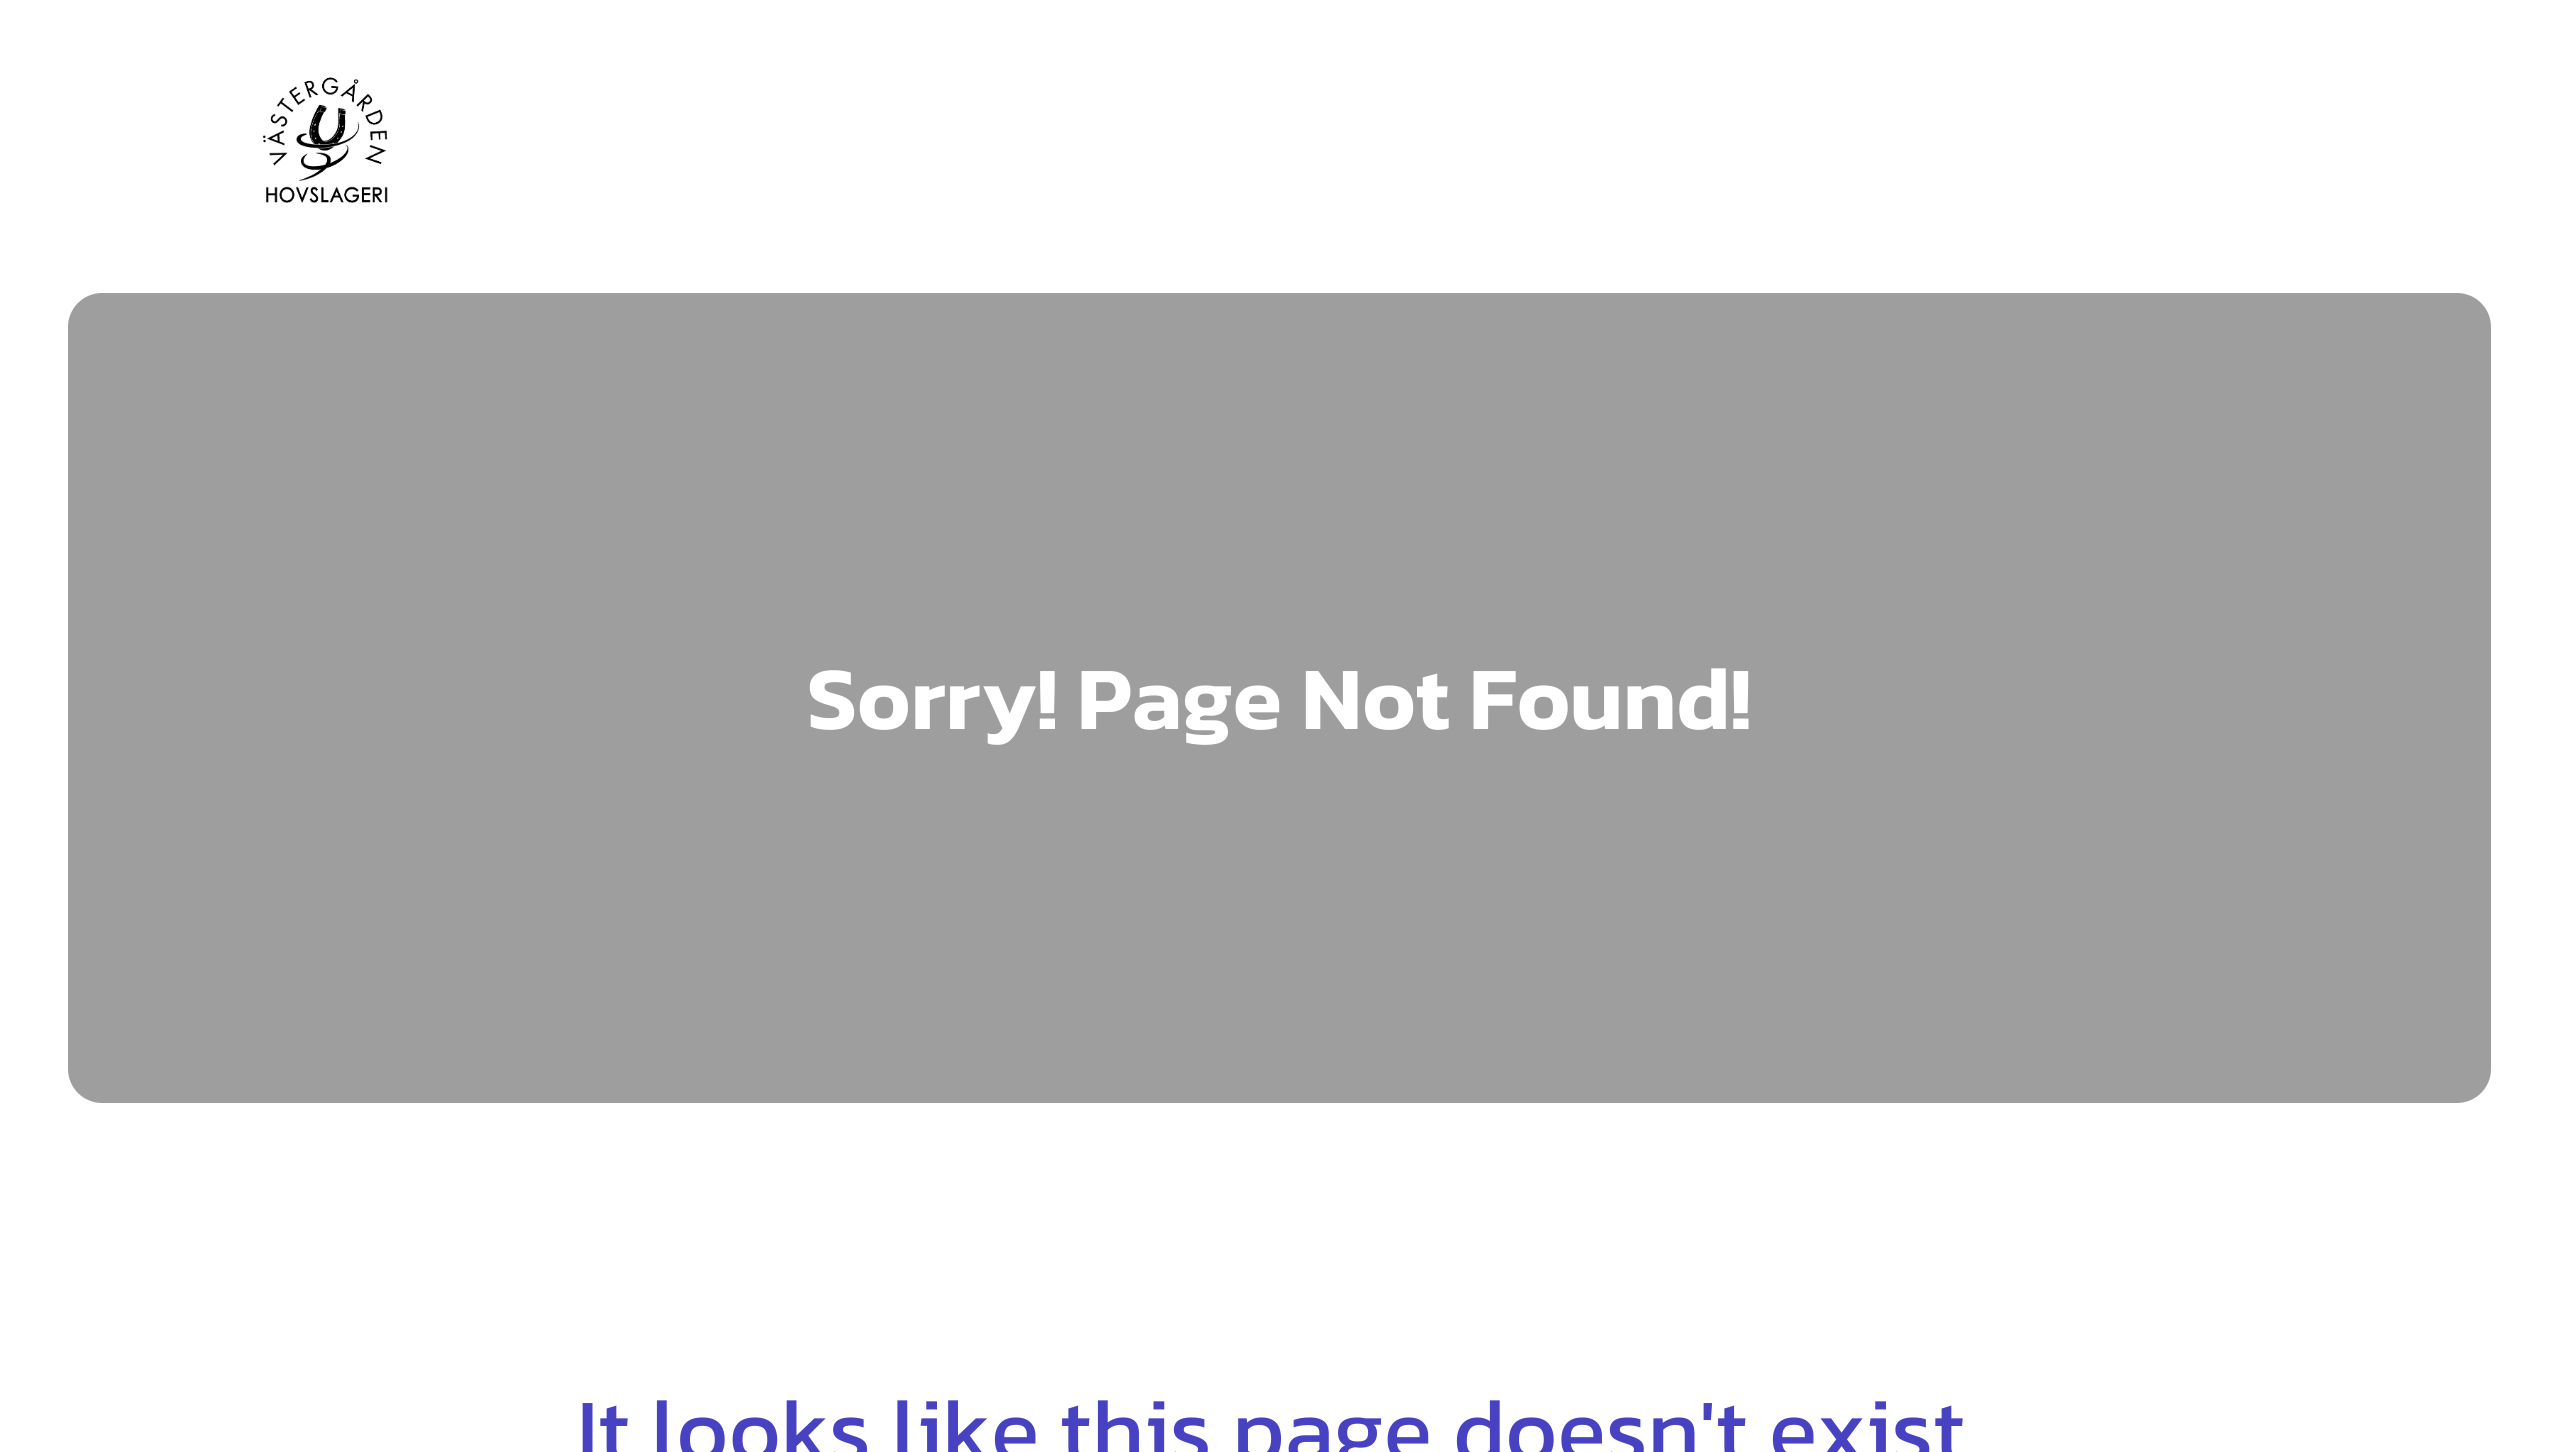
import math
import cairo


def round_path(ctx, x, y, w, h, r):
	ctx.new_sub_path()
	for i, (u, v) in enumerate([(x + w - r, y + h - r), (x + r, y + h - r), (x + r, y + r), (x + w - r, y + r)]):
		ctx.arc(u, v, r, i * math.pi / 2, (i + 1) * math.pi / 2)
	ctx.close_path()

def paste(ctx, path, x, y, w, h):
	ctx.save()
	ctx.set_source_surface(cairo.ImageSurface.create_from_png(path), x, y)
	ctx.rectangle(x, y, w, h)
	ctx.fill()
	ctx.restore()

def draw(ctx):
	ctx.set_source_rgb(1, 1, 1)
	ctx.paint()
	paste(ctx, 'media/1.png', 262, 77, 126, 126)
	ctx.set_source_rgb(0.62, 0.62, 0.62)
	round_path(ctx, 68, 293, 2423, 810, 34)
	ctx.fill()
	ctx.select_font_face('Kanit SemiBold')
	ctx.set_font_size(90)
	ctx.set_source_rgb(1, 1, 1)
	ctx.move_to(807, 729)
	ctx.show_text('Sorry! Page Not Found!')
	ctx.select_font_face('Kanit')
	ctx.set_source_rgb(0.278, 0.259, 0.761)
	ctx.move_to(577, 1461)
	ctx.show_text('It looks like this page doesn\'t exist')


surface = cairo.ImageSurface(cairo.FORMAT_RGB24, 2557, 1452)
ctx = cairo.Context(surface)
options = cairo.FontOptions()
options.set_hint_metrics(cairo.HINT_METRICS_OFF)
options.set_hint_style(cairo.HINT_STYLE_NONE)
ctx.set_font_options(options)
ctx.set_miter_limit(4)
draw(ctx)
surface.write_to_png('image.png')
